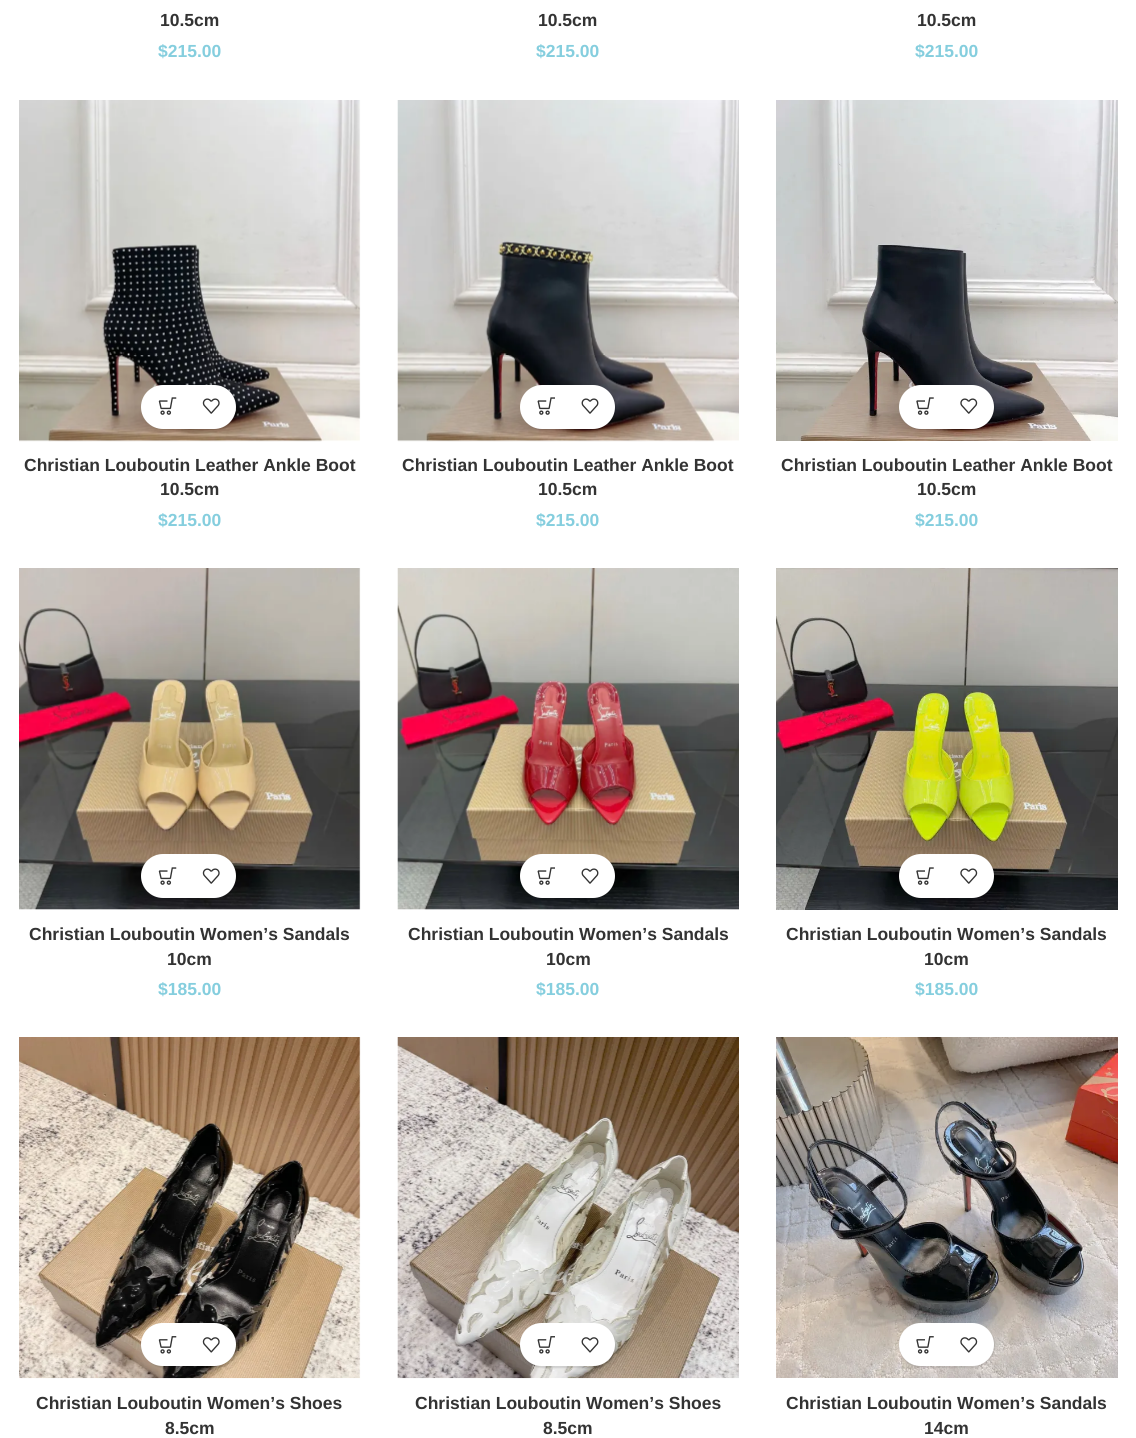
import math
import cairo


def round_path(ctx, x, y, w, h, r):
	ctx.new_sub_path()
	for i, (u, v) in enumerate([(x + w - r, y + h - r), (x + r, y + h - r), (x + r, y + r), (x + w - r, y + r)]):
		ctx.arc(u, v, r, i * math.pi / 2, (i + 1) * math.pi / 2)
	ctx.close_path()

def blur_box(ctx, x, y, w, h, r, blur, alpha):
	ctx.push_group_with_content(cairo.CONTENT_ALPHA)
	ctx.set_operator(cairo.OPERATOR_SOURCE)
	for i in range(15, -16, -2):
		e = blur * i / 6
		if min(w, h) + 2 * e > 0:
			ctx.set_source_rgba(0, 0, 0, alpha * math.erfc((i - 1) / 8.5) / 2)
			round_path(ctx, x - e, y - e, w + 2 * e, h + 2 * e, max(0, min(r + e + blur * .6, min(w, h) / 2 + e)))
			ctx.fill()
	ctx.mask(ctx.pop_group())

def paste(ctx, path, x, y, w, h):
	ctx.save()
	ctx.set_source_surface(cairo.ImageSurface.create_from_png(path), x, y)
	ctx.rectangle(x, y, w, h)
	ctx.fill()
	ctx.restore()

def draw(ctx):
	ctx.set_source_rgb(1, 1, 1)
	ctx.paint()
	ctx.select_font_face('Liberation Sans', cairo.FONT_SLANT_NORMAL, cairo.FONT_WEIGHT_BOLD)
	ctx.set_font_size(17.5)
	ctx.set_source_rgb(0.2, 0.2, 0.2)
	ctx.move_to(160, 26)
	ctx.show_text('10.5cm')
	ctx.set_source_rgb(0.522, 0.808, 0.871)
	ctx.move_to(158, 57)
	ctx.show_text('$215.00')
	ctx.set_source_rgb(0.2, 0.2, 0.2)
	ctx.move_to(538, 26)
	ctx.show_text('10.5cm')
	ctx.set_source_rgb(0.522, 0.808, 0.871)
	ctx.move_to(536, 57)
	ctx.show_text('$215.00')
	ctx.set_source_rgb(0.2, 0.2, 0.2)
	ctx.move_to(917, 26)
	ctx.show_text('10.5cm')
	ctx.set_source_rgb(0.522, 0.808, 0.871)
	ctx.move_to(915, 57)
	ctx.show_text('$215.00')
	paste(ctx, 'media/1.png', 19, 100, 342, 342)
	ctx.set_source_rgb(0, 0, 0)
	blur_box(ctx, 143, 386, 95, 44, 22, 0.5, 0.1)
	ctx.set_source_rgb(1, 1, 1)
	round_path(ctx, 141, 385, 95, 44, 22)
	ctx.fill()
	paste(ctx, 'media/2.png', 158, 397, 19, 18)
	paste(ctx, 'media/3.png', 202, 398, 18, 16)
	ctx.set_source_rgb(0.2, 0.2, 0.2)
	ctx.move_to(24, 471)
	ctx.show_text('Christian Louboutin Leather Ankle Boot')
	ctx.move_to(160, 495)
	ctx.show_text('10.5cm')
	ctx.set_source_rgb(0.522, 0.808, 0.871)
	ctx.move_to(158, 526)
	ctx.show_text('$215.00')
	paste(ctx, 'media/4.png', 397, 100, 342, 342)
	ctx.set_source_rgb(0, 0, 0)
	blur_box(ctx, 521, 386, 95, 44, 22, 0.5, 0.1)
	ctx.set_source_rgb(1, 1, 1)
	round_path(ctx, 520, 385, 95, 44, 22)
	ctx.fill()
	paste(ctx, 'media/5.png', 537, 397, 18, 18)
	paste(ctx, 'media/6.png', 581, 398, 18, 16)
	ctx.set_source_rgb(0.2, 0.2, 0.2)
	ctx.move_to(402, 471)
	ctx.show_text('Christian Louboutin Leather Ankle Boot')
	ctx.move_to(538, 495)
	ctx.show_text('10.5cm')
	ctx.set_source_rgb(0.522, 0.808, 0.871)
	ctx.move_to(536, 526)
	ctx.show_text('$215.00')
	paste(ctx, 'media/7.png', 776, 100, 342, 341)
	ctx.set_source_rgb(0, 0, 0)
	blur_box(ctx, 900, 386, 95, 44, 22, 0.5, 0.1)
	ctx.set_source_rgb(1, 1, 1)
	round_path(ctx, 899, 385, 95, 44, 22)
	ctx.fill()
	paste(ctx, 'media/8.png', 916, 397, 18, 18)
	paste(ctx, 'media/9.png', 960, 398, 18, 16)
	ctx.set_source_rgb(0.2, 0.2, 0.2)
	ctx.move_to(781, 471)
	ctx.show_text('Christian Louboutin Leather Ankle Boot')
	ctx.move_to(917, 495)
	ctx.show_text('10.5cm')
	ctx.set_source_rgb(0.522, 0.808, 0.871)
	ctx.move_to(915, 526)
	ctx.show_text('$215.00')
	paste(ctx, 'media/10.png', 19, 568, 342, 342)
	ctx.set_source_rgb(0, 0, 0)
	blur_box(ctx, 143, 855, 95, 44, 22, 0.5, 0.1)
	ctx.set_source_rgb(1, 1, 1)
	round_path(ctx, 141, 854, 95, 44, 22)
	ctx.fill()
	paste(ctx, 'media/2.png', 158, 867, 19, 18)
	paste(ctx, 'media/3.png', 202, 868, 18, 16)
	ctx.set_source_rgb(0.2, 0.2, 0.2)
	ctx.move_to(29, 940)
	ctx.show_text('Christian Louboutin Women’s Sandals')
	ctx.move_to(167, 965)
	ctx.show_text('10cm')
	ctx.set_source_rgb(0.522, 0.808, 0.871)
	ctx.move_to(158, 995)
	ctx.show_text('$185.00')
	paste(ctx, 'media/11.png', 397, 568, 342, 342)
	ctx.set_source_rgb(0, 0, 0)
	blur_box(ctx, 521, 855, 95, 44, 22, 0.5, 0.1)
	ctx.set_source_rgb(1, 1, 1)
	round_path(ctx, 520, 854, 95, 44, 22)
	ctx.fill()
	paste(ctx, 'media/5.png', 537, 867, 18, 18)
	paste(ctx, 'media/6.png', 581, 868, 18, 16)
	ctx.set_source_rgb(0.2, 0.2, 0.2)
	ctx.move_to(408, 940)
	ctx.show_text('Christian Louboutin Women’s Sandals')
	ctx.move_to(546, 965)
	ctx.show_text('10cm')
	ctx.set_source_rgb(0.522, 0.808, 0.871)
	ctx.move_to(536, 995)
	ctx.show_text('$185.00')
	paste(ctx, 'media/12.png', 776, 568, 342, 342)
	ctx.set_source_rgb(0, 0, 0)
	blur_box(ctx, 900, 855, 95, 44, 22, 0.5, 0.1)
	ctx.set_source_rgb(1, 1, 1)
	round_path(ctx, 899, 854, 95, 44, 22)
	ctx.fill()
	paste(ctx, 'media/8.png', 916, 867, 18, 18)
	paste(ctx, 'media/9.png', 960, 868, 18, 16)
	ctx.set_source_rgb(0.2, 0.2, 0.2)
	ctx.move_to(786, 940)
	ctx.show_text('Christian Louboutin Women’s Sandals')
	ctx.move_to(924, 965)
	ctx.show_text('10cm')
	ctx.set_source_rgb(0.522, 0.808, 0.871)
	ctx.move_to(915, 995)
	ctx.show_text('$185.00')
	paste(ctx, 'media/13.png', 19, 1037, 342, 342)
	ctx.set_source_rgb(0, 0, 0)
	blur_box(ctx, 143, 1324, 95, 44, 22, 0.5, 0.1)
	ctx.set_source_rgb(1, 1, 1)
	round_path(ctx, 141, 1323, 95, 43, 21.5)
	ctx.fill()
	paste(ctx, 'media/14.png', 158, 1336, 19, 18)
	paste(ctx, 'media/15.png', 202, 1337, 18, 16)
	ctx.set_source_rgb(0.2, 0.2, 0.2)
	ctx.move_to(36, 1409)
	ctx.show_text('Christian Louboutin Women’s Shoes')
	ctx.move_to(165, 1434)
	ctx.show_text('8.5cm')
	paste(ctx, 'media/16.png', 397, 1037, 342, 342)
	ctx.set_source_rgb(0, 0, 0)
	blur_box(ctx, 521, 1324, 95, 44, 22, 0.5, 0.1)
	ctx.set_source_rgb(1, 1, 1)
	round_path(ctx, 520, 1323, 95, 43, 21.5)
	ctx.fill()
	paste(ctx, 'media/17.png', 537, 1336, 18, 18)
	paste(ctx, 'media/18.png', 581, 1337, 18, 16)
	ctx.set_source_rgb(0.2, 0.2, 0.2)
	ctx.move_to(415, 1409)
	ctx.show_text('Christian Louboutin Women’s Shoes')
	ctx.move_to(543, 1434)
	ctx.show_text('8.5cm')
	paste(ctx, 'media/19.png', 776, 1037, 342, 341)
	ctx.set_source_rgb(0, 0, 0)
	blur_box(ctx, 900, 1324, 95, 44, 22, 0.5, 0.1)
	ctx.set_source_rgb(1, 1, 1)
	round_path(ctx, 899, 1323, 95, 43, 21.5)
	ctx.fill()
	paste(ctx, 'media/20.png', 916, 1336, 18, 18)
	paste(ctx, 'media/21.png', 960, 1337, 18, 16)
	ctx.set_source_rgb(0.2, 0.2, 0.2)
	ctx.move_to(786, 1409)
	ctx.show_text('Christian Louboutin Women’s Sandals')
	ctx.move_to(924, 1434)
	ctx.show_text('14cm')


surface = cairo.ImageSurface(cairo.FORMAT_RGB24, 1136, 1438)
ctx = cairo.Context(surface)
options = cairo.FontOptions()
options.set_hint_metrics(cairo.HINT_METRICS_OFF)
options.set_hint_style(cairo.HINT_STYLE_NONE)
ctx.set_font_options(options)
ctx.set_miter_limit(4)
draw(ctx)
surface.write_to_png('image.png')
